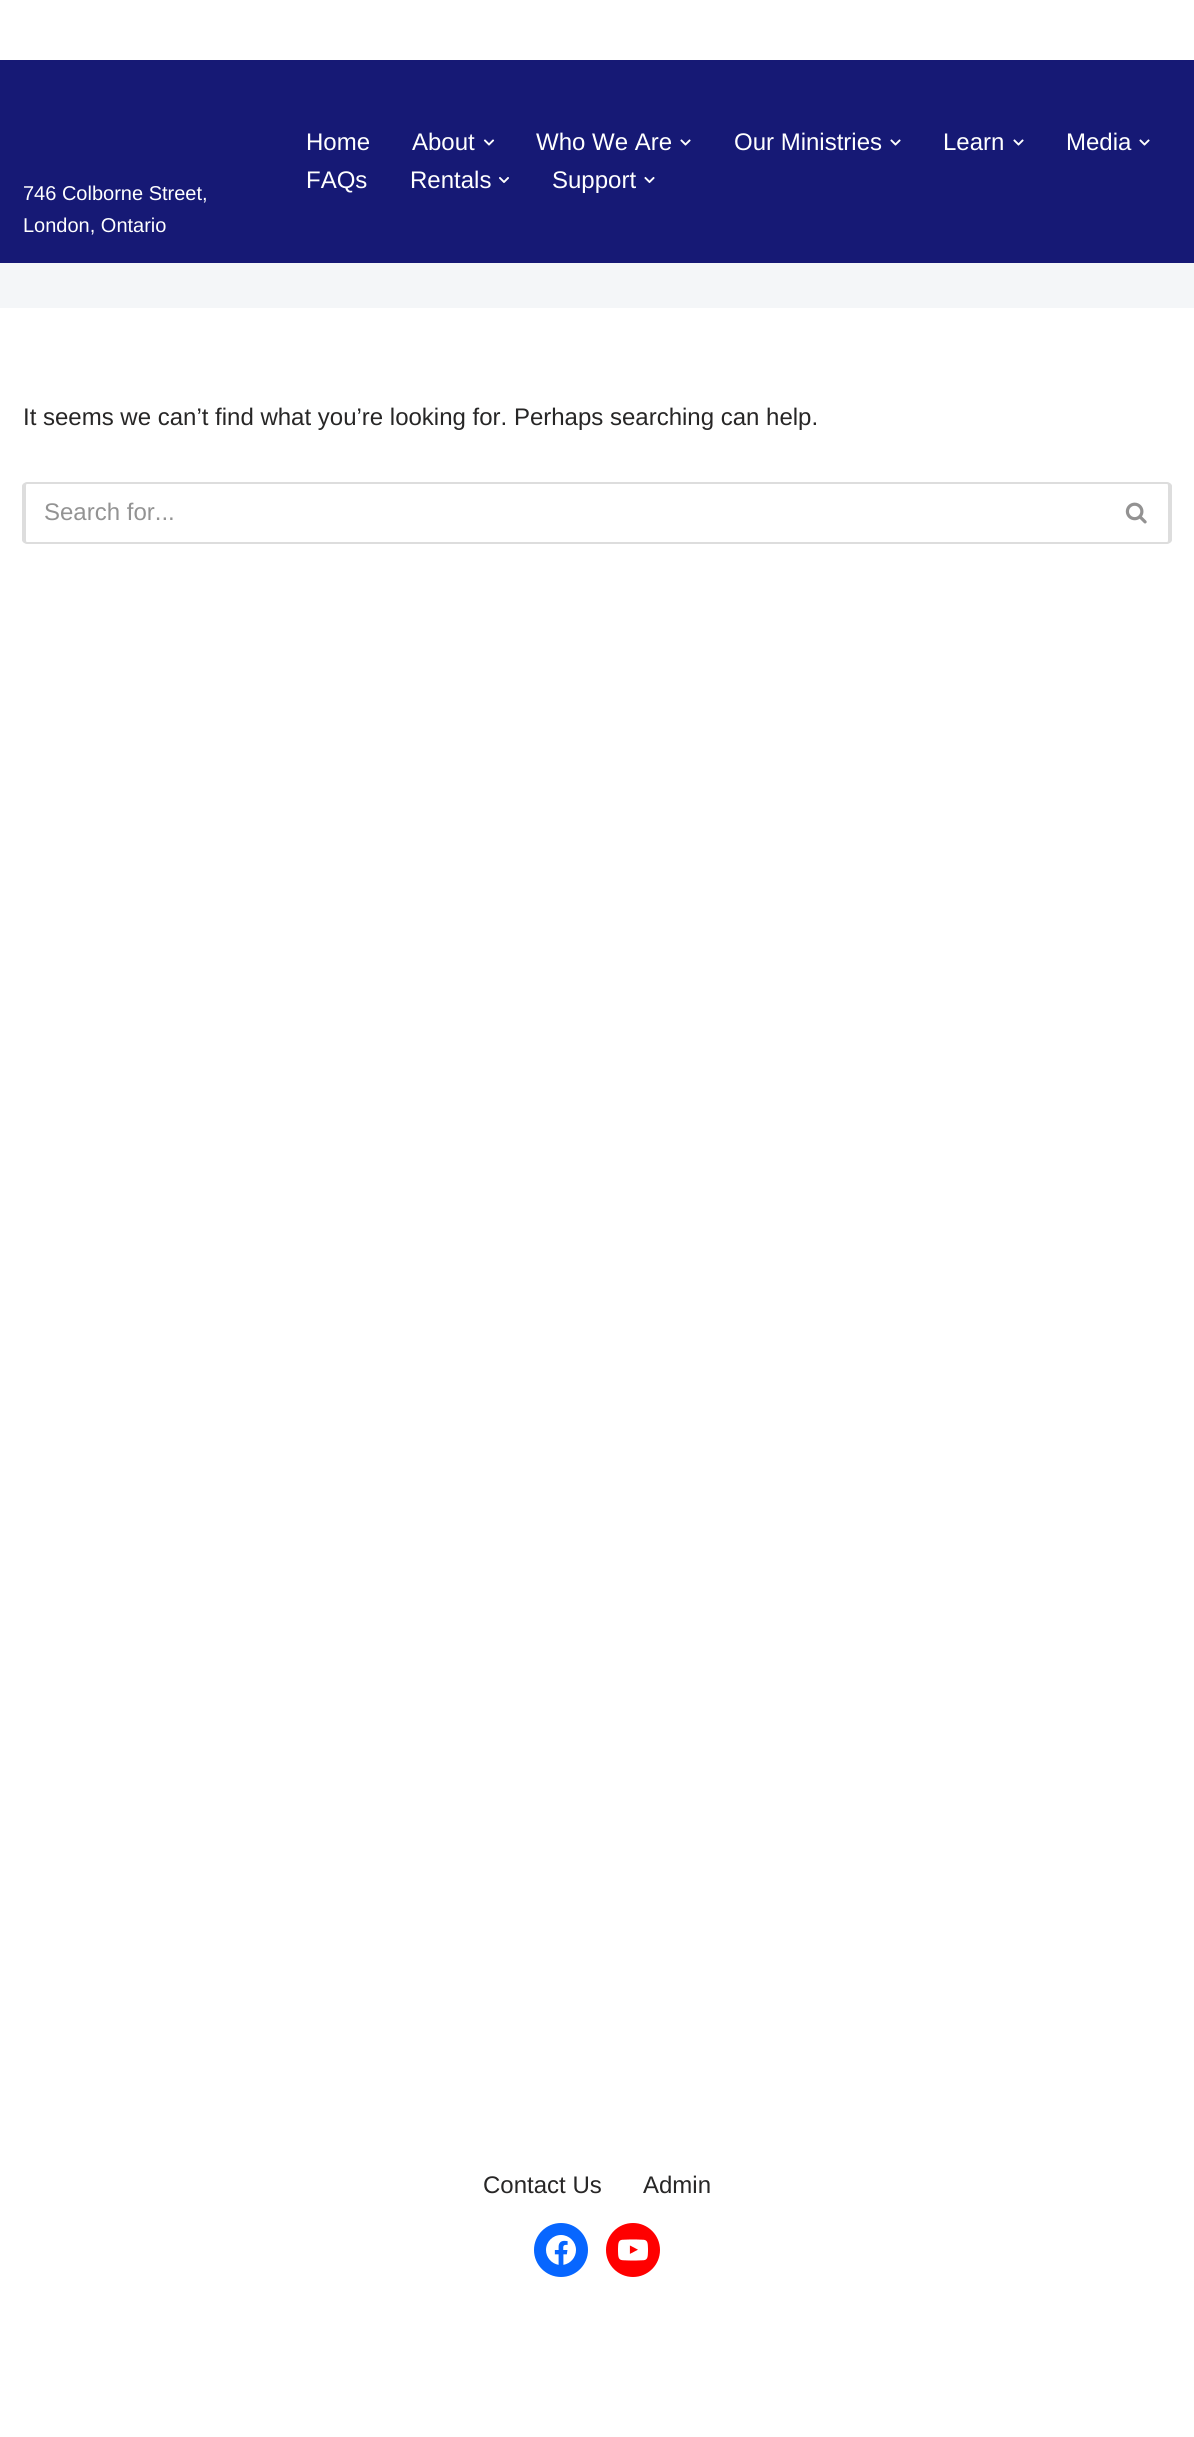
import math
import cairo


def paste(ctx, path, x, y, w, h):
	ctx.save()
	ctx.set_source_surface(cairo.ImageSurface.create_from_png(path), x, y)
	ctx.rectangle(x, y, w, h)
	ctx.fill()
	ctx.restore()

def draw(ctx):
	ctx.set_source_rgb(1, 1, 1)
	ctx.paint()
	ctx.set_source_rgb(0.086, 0.098, 0.459)
	ctx.rectangle(0, 60, 1194, 203)
	ctx.fill()
	ctx.set_source_rgb(0.957, 0.961, 0.969)
	ctx.rectangle(0, 263, 1194, 45)
	ctx.fill()
	ctx.select_font_face('Liberation Sans')
	ctx.set_font_size(24)
	ctx.set_source_rgb(1, 1, 1)
	ctx.move_to(306, 150)
	ctx.show_text('Home')
	ctx.move_to(412, 150)
	ctx.show_text('About')
	paste(ctx, 'media/1.png', 483, 139, 12, 7)
	ctx.move_to(536, 150)
	ctx.show_text('Who We Are')
	paste(ctx, 'media/2.png', 680, 139, 11, 7)
	ctx.move_to(734, 150)
	ctx.show_text('Our Ministries')
	paste(ctx, 'media/2.png', 890, 139, 11, 7)
	ctx.move_to(943, 150)
	ctx.show_text('Learn')
	paste(ctx, 'media/2.png', 1013, 139, 11, 7)
	ctx.move_to(1066, 150)
	ctx.show_text('Media')
	paste(ctx, 'media/2.png', 1139, 139, 11, 7)
	ctx.move_to(306, 188)
	ctx.show_text('FAQs')
	ctx.move_to(410, 188)
	ctx.show_text('Rentals')
	paste(ctx, 'media/3.png', 499, 177, 10, 6)
	ctx.move_to(552, 188)
	ctx.show_text('Support')
	paste(ctx, 'media/4.png', 644, 176, 11, 8)
	ctx.set_font_size(20)
	ctx.move_to(23, 200)
	ctx.show_text('746 Colborne Street,')
	ctx.move_to(23, 232)
	ctx.show_text('London, Ontario')
	ctx.set_font_size(24)
	ctx.set_source_rgb(0.153, 0.149, 0.149)
	ctx.move_to(23, 425)
	ctx.show_text('It seems we can’t find what you’re looking for. Perhaps searching can help.')
	ctx.set_source_rgb(0.867, 0.867, 0.867)
	ctx.set_fill_rule(cairo.FILL_RULE_EVEN_ODD)
	ctx.new_path()
	ctx.move_to(27, 482)
	ctx.line_to(1104, 482)
	ctx.line_to(1104, 544)
	ctx.line_to(27, 544)
	ctx.curve_to(25, 544, 22, 542, 22, 540)
	ctx.line_to(22, 486)
	ctx.curve_to(22, 484, 25, 482, 27, 482)
	ctx.close_path()
	ctx.move_to(27, 484)
	ctx.line_to(1104, 484)
	ctx.line_to(1104, 542)
	ctx.line_to(27, 542)
	ctx.curve_to(26, 542, 26, 541, 26, 540)
	ctx.line_to(26, 486)
	ctx.curve_to(26, 485, 26, 484, 27, 484)
	ctx.close_path()
	ctx.fill()
	ctx.set_source_rgb(0.576, 0.576, 0.576)
	ctx.move_to(44, 520)
	ctx.show_text('Search for...')
	ctx.set_source_rgb(0.867, 0.867, 0.867)
	ctx.new_path()
	ctx.move_to(1104, 482)
	ctx.line_to(1167, 482)
	ctx.curve_to(1169, 482, 1172, 484, 1172, 486)
	ctx.line_to(1172, 540)
	ctx.curve_to(1172, 542, 1169, 544, 1167, 544)
	ctx.line_to(1104, 544)
	ctx.close_path()
	ctx.move_to(1104, 484)
	ctx.line_to(1167, 484)
	ctx.curve_to(1168, 484, 1168, 485, 1168, 486)
	ctx.line_to(1168, 540)
	ctx.curve_to(1168, 541, 1168, 542, 1167, 542)
	ctx.line_to(1104, 542)
	ctx.close_path()
	ctx.fill()
	paste(ctx, 'media/5.png', 1125, 502, 22, 22)
	ctx.set_source_rgb(0.153, 0.149, 0.149)
	ctx.move_to(483, 2193)
	ctx.show_text('Contact Us')
	ctx.move_to(643, 2193)
	ctx.show_text('Admin')
	ctx.set_source_rgb(0.031, 0.4, 1)
	ctx.new_path()
	ctx.arc(561, 2250, 27, 0, 2 * math.pi)
	ctx.fill()
	paste(ctx, 'media/6.png', 546, 2235, 30, 30)
	ctx.set_source_rgb(1, 0, 0)
	ctx.arc(633, 2250, 27, 0, 2 * math.pi)
	ctx.fill()
	paste(ctx, 'media/7.png', 618, 2239, 30, 22)


surface = cairo.ImageSurface(cairo.FORMAT_RGB24, 1194, 2437)
ctx = cairo.Context(surface)
options = cairo.FontOptions()
options.set_hint_metrics(cairo.HINT_METRICS_OFF)
options.set_hint_style(cairo.HINT_STYLE_NONE)
ctx.set_font_options(options)
ctx.set_miter_limit(4)
draw(ctx)
surface.write_to_png('image.png')
